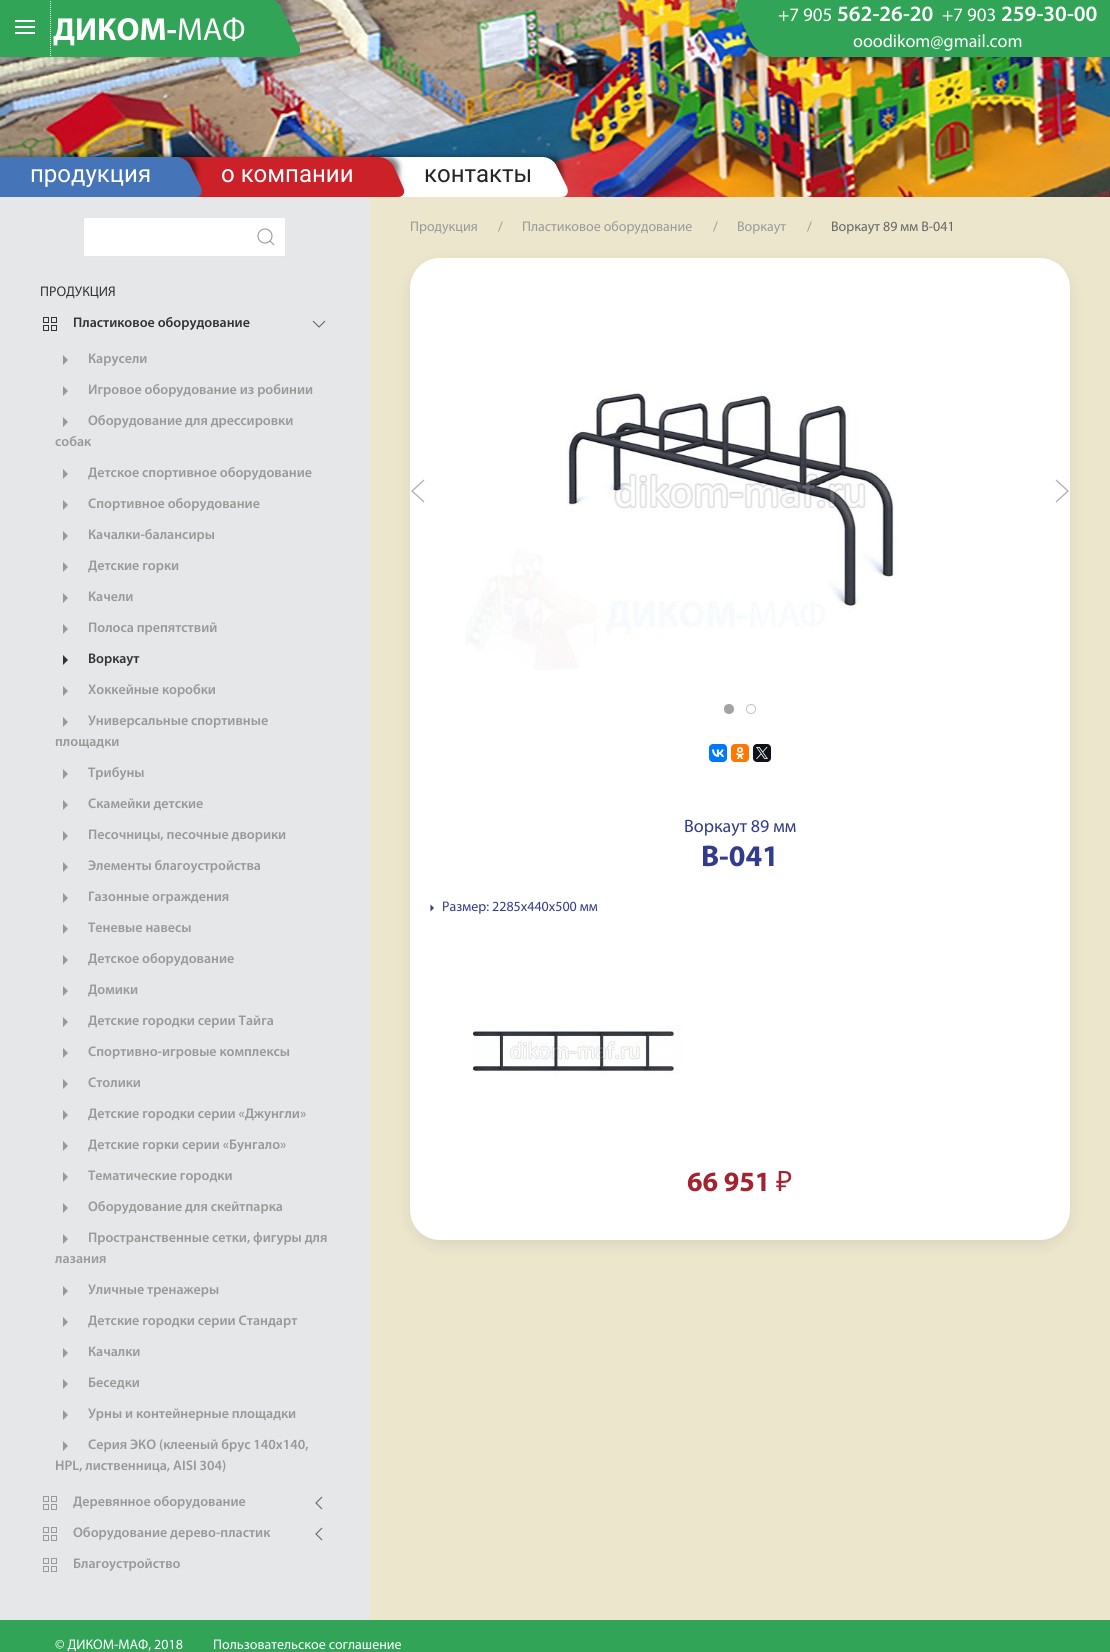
import math
import cairo


def round_path(ctx, x, y, w, h, r):
	ctx.new_sub_path()
	for i, (u, v) in enumerate([(x + w - r, y + h - r), (x + r, y + h - r), (x + r, y + r), (x + w - r, y + r)]):
		ctx.arc(u, v, r, i * math.pi / 2, (i + 1) * math.pi / 2)
	ctx.close_path()

def blur_box(ctx, x, y, w, h, r, blur, alpha):
	ctx.push_group_with_content(cairo.CONTENT_ALPHA)
	ctx.set_operator(cairo.OPERATOR_SOURCE)
	for i in range(15, -16, -2):
		e = blur * i / 6
		if min(w, h) + 2 * e > 0:
			ctx.set_source_rgba(0, 0, 0, alpha * math.erfc((i - 1) / 8.5) / 2)
			round_path(ctx, x - e, y - e, w + 2 * e, h + 2 * e, max(0, min(r + e + blur * .6, min(w, h) / 2 + e)))
			ctx.fill()
	ctx.mask(ctx.pop_group())

def paste(ctx, path, x, y, w, h):
	ctx.save()
	ctx.set_source_surface(cairo.ImageSurface.create_from_png(path), x, y)
	ctx.rectangle(x, y, w, h)
	ctx.fill()
	ctx.restore()

def draw(ctx):
	ctx.set_source_rgb(0.922, 0.902, 0.804)
	ctx.paint()
	paste(ctx, 'media/1.png', 0, 0, 1110, 197)
	ctx.set_source_rgb(0, 0, 0)
	blur_box(ctx, -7, -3, 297, 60, 12, 2.5, 0.3)
	ctx.set_source_rgb(0.196, 0.643, 0.341)
	ctx.new_path()
	ctx.move_to(-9, -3)
	ctx.line_to(264, -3)
	ctx.curve_to(271, -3, 279, 2, 282, 9)
	ctx.line_to(299, 45)
	ctx.curve_to(302, 52, 299, 57, 292, 57)
	ctx.line_to(19, 57)
	ctx.curve_to(12, 57, 4, 52, 1, 45)
	ctx.line_to(-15, 9)
	ctx.curve_to(-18, 2, -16, -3, -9, -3)
	ctx.close_path()
	ctx.fill()
	ctx.rectangle(0, 43, 19, 14)
	ctx.fill()
	ctx.new_path()
	ctx.move_to(50.5, -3)
	ctx.line_to(50.5, 57)
	ctx.set_source_rgb(1, 1, 1)
	ctx.set_line_width(1)
	ctx.set_dash([1, 1])
	ctx.stroke()
	ctx.rectangle(15, 26, 20, 2)
	ctx.rectangle(15, 20, 20, 2)
	ctx.rectangle(15, 32, 20, 2)
	ctx.fill()
	ctx.select_font_face('Myriad', cairo.FONT_SLANT_NORMAL, cairo.FONT_WEIGHT_BOLD)
	ctx.set_font_size(32)
	ctx.move_to(53, 40)
	ctx.show_text('ДИКОМ-')
	ctx.select_font_face('Myriad')
	ctx.move_to(177, 40)
	ctx.show_text('МАФ')
	ctx.set_source_rgb(0, 0, 0)
	blur_box(ctx, 744, -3, 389, 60, 15, 2.5, 0.3)
	ctx.set_source_rgb(0.196, 0.643, 0.341)
	ctx.new_path()
	ctx.move_to(745, -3)
	ctx.line_to(1109, -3)
	ctx.curve_to(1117, -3, 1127, 4, 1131, 12)
	ctx.line_to(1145, 42)
	ctx.curve_to(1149, 50, 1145, 57, 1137, 57)
	ctx.line_to(773, 57)
	ctx.curve_to(765, 57, 755, 50, 751, 42)
	ctx.line_to(737, 12)
	ctx.curve_to(734, 4, 737, -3, 745, -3)
	ctx.close_path()
	ctx.fill()
	ctx.set_font_size(19)
	ctx.set_source_rgb(1, 1, 1)
	ctx.move_to(778, 21)
	ctx.show_text('+7 905')
	ctx.select_font_face('Myriad SemiBold')
	ctx.set_font_size(22)
	ctx.move_to(837, 21)
	ctx.show_text('562-26-20')
	ctx.select_font_face('Myriad')
	ctx.set_font_size(19)
	ctx.move_to(942, 21)
	ctx.show_text('+7 903')
	ctx.select_font_face('Myriad SemiBold')
	ctx.set_font_size(22)
	ctx.move_to(1001, 21)
	ctx.show_text('259-30-00')
	ctx.select_font_face('Myriad')
	ctx.set_font_size(18)
	ctx.move_to(853, 47)
	ctx.show_text('ooodikom@gmail.com')
	ctx.set_source_rgb(0.902, 0.906, 0.91)
	ctx.rectangle(0, 197, 370, 1423)
	ctx.fill()
	ctx.save()
	ctx.rectangle(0, 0, 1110, 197)
	ctx.clip()
	ctx.set_source_rgb(0, 0, 0)
	blur_box(ctx, 324, 157, 238, 40, 10, 2.5, 0.5)
	ctx.restore()
	ctx.set_source_rgb(1, 1, 1)
	ctx.new_path()
	ctx.move_to(324, 157)
	ctx.line_to(543, 157)
	ctx.curve_to(548, 157, 555, 161, 557, 167)
	ctx.line_to(567, 187)
	ctx.curve_to(569, 193, 567, 197, 561, 197)
	ctx.line_to(343, 197)
	ctx.curve_to(337, 197, 331, 193, 328, 187)
	ctx.line_to(319, 167)
	ctx.curve_to(316, 161, 319, 157, 324, 157)
	ctx.close_path()
	ctx.fill()
	ctx.save()
	ctx.rectangle(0, 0, 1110, 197)
	ctx.clip()
	ctx.set_source_rgb(0, 0, 0)
	blur_box(ctx, 136, 157, 263, 40, 10, 2.5, 0.5)
	ctx.restore()
	ctx.set_source_rgb(0.8, 0.129, 0.157)
	ctx.new_path()
	ctx.move_to(137, 157)
	ctx.line_to(379, 157)
	ctx.curve_to(385, 157, 391, 161, 394, 167)
	ctx.line_to(403, 187)
	ctx.curve_to(406, 193, 403, 197, 398, 197)
	ctx.line_to(155, 197)
	ctx.curve_to(150, 197, 143, 193, 141, 187)
	ctx.line_to(131, 167)
	ctx.curve_to(129, 161, 131, 157, 137, 157)
	ctx.close_path()
	ctx.fill()
	ctx.save()
	ctx.rectangle(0, 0, 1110, 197)
	ctx.clip()
	ctx.set_source_rgb(0, 0, 0)
	blur_box(ctx, -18, 157, 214, 40, 10, 2.5, 0.5)
	ctx.restore()
	ctx.set_source_rgb(0.275, 0.455, 0.722)
	ctx.new_path()
	ctx.move_to(-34, 157)
	ctx.line_to(177, 157)
	ctx.curve_to(182, 157, 189, 161, 191, 167)
	ctx.line_to(201, 187)
	ctx.curve_to(203, 193, 201, 197, 195, 197)
	ctx.line_to(-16, 197)
	ctx.curve_to(-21, 197, -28, 193, -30, 187)
	ctx.line_to(-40, 167)
	ctx.curve_to(-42, 161, -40, 157, -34, 157)
	ctx.close_path()
	ctx.fill()
	ctx.select_font_face('Roboto')
	ctx.set_font_size(24)
	ctx.set_source_rgb(1, 1, 1)
	ctx.move_to(30, 182)
	ctx.show_text('продукция')
	ctx.move_to(221, 182)
	ctx.show_text('о компании')
	ctx.set_source_rgb(0.149, 0.141, 0.141)
	ctx.move_to(424, 182)
	ctx.show_text('контакты')
	ctx.set_source_rgb(1, 1, 1)
	ctx.rectangle(83.5, 217.5, 202, 39)
	ctx.fill_preserve()
	ctx.set_source_rgb(0.898, 0.898, 0.898)
	ctx.set_dash([])
	ctx.stroke()
	ctx.arc(265, 236, 7, 0, 2 * math.pi)
	ctx.set_source_rgb(0.6, 0.6, 0.6)
	ctx.set_line_width(1.1)
	ctx.stroke()
	ctx.new_path()
	ctx.move_to(270, 241)
	ctx.line_to(274, 245)
	ctx.close_path()
	ctx.stroke()
	ctx.select_font_face('Myriad')
	ctx.set_font_size(14)
	ctx.set_source_rgb(0.2, 0.2, 0.2)
	ctx.move_to(40, 296)
	ctx.show_text('ПРОДУКЦИЯ')
	paste(ctx, 'media/2.png', 43, 317, 14, 14)
	ctx.select_font_face('Myriad SemiBold')
	ctx.move_to(73, 327)
	ctx.show_text('Пластиковое оборудование')
	ctx.new_path()
	ctx.move_to(313, 321)
	ctx.line_to(319, 327)
	ctx.line_to(325, 321)
	ctx.set_source_rgb(0.4, 0.4, 0.4)
	ctx.stroke()
	ctx.set_source_rgb(0.6, 0.6, 0.6)
	ctx.new_path()
	ctx.move_to(63, 355)
	ctx.line_to(68, 360)
	ctx.line_to(63, 365)
	ctx.close_path()
	ctx.move_to(63, 386)
	ctx.line_to(68, 391)
	ctx.line_to(63, 396)
	ctx.close_path()
	ctx.fill()
	ctx.move_to(88, 363)
	ctx.show_text('Карусели')
	ctx.move_to(88, 394)
	ctx.show_text('Игровое оборудование из робинии')
	ctx.new_path()
	ctx.move_to(63, 417)
	ctx.line_to(68, 422)
	ctx.line_to(63, 427)
	ctx.close_path()
	ctx.move_to(63, 469)
	ctx.line_to(68, 474)
	ctx.line_to(63, 479)
	ctx.close_path()
	ctx.fill()
	for x, y, s in [
		(88, 425, 'Оборудование для дрессировки'),
		(55, 446, 'собак'),
		(88, 477, 'Детское спортивное оборудование'),
	]:
		ctx.move_to(x, y)
		ctx.show_text(s)
	ctx.new_path()
	ctx.move_to(63, 500)
	ctx.line_to(68, 505)
	ctx.line_to(63, 510)
	ctx.close_path()
	ctx.move_to(63, 531)
	ctx.line_to(68, 536)
	ctx.line_to(63, 541)
	ctx.close_path()
	ctx.fill()
	ctx.move_to(88, 508)
	ctx.show_text('Спортивное оборудование')
	ctx.move_to(88, 539)
	ctx.show_text('Качалки-балансиры')
	ctx.new_path()
	ctx.move_to(63, 562)
	ctx.line_to(68, 567)
	ctx.line_to(63, 572)
	ctx.close_path()
	ctx.move_to(63, 593)
	ctx.line_to(68, 598)
	ctx.line_to(63, 603)
	ctx.close_path()
	ctx.fill()
	ctx.move_to(88, 570)
	ctx.show_text('Детские горки')
	ctx.move_to(88, 601)
	ctx.show_text('Качели')
	ctx.new_path()
	ctx.move_to(63, 624)
	ctx.line_to(68, 629)
	ctx.line_to(63, 634)
	ctx.close_path()
	ctx.fill()
	ctx.move_to(88, 632)
	ctx.show_text('Полоса препятствий')
	ctx.set_source_rgb(0.2, 0.2, 0.2)
	ctx.new_path()
	ctx.move_to(63, 655)
	ctx.line_to(68, 660)
	ctx.line_to(63, 665)
	ctx.close_path()
	ctx.fill()
	ctx.move_to(88, 663)
	ctx.show_text('Воркаут')
	ctx.set_source_rgb(0.6, 0.6, 0.6)
	ctx.new_path()
	ctx.move_to(63, 686)
	ctx.line_to(68, 691)
	ctx.line_to(63, 696)
	ctx.close_path()
	ctx.move_to(63, 717)
	ctx.line_to(68, 722)
	ctx.line_to(63, 727)
	ctx.close_path()
	ctx.fill()
	for x, y, s in [
		(88, 694, 'Хоккейные коробки'),
		(88, 725, 'Универсальные спортивные'),
		(55, 746, 'площадки'),
	]:
		ctx.move_to(x, y)
		ctx.show_text(s)
	ctx.new_path()
	ctx.move_to(63, 769)
	ctx.line_to(68, 774)
	ctx.line_to(63, 779)
	ctx.close_path()
	ctx.move_to(63, 800)
	ctx.line_to(68, 805)
	ctx.line_to(63, 810)
	ctx.close_path()
	ctx.fill()
	ctx.move_to(88, 777)
	ctx.show_text('Трибуны')
	ctx.move_to(88, 808)
	ctx.show_text('Скамейки детские')
	ctx.new_path()
	ctx.move_to(63, 831)
	ctx.line_to(68, 836)
	ctx.line_to(63, 841)
	ctx.close_path()
	ctx.move_to(63, 862)
	ctx.line_to(68, 867)
	ctx.line_to(63, 872)
	ctx.close_path()
	ctx.fill()
	ctx.move_to(88, 839)
	ctx.show_text('Песочницы, песочные дворики')
	ctx.move_to(88, 870)
	ctx.show_text('Элементы благоустройства')
	ctx.new_path()
	ctx.move_to(63, 893)
	ctx.line_to(68, 898)
	ctx.line_to(63, 903)
	ctx.close_path()
	ctx.move_to(63, 924)
	ctx.line_to(68, 929)
	ctx.line_to(63, 934)
	ctx.close_path()
	ctx.fill()
	ctx.move_to(88, 901)
	ctx.show_text('Газонные ограждения')
	ctx.move_to(88, 932)
	ctx.show_text('Теневые навесы')
	ctx.new_path()
	ctx.move_to(63, 955)
	ctx.line_to(68, 960)
	ctx.line_to(63, 965)
	ctx.close_path()
	ctx.move_to(63, 986)
	ctx.line_to(68, 991)
	ctx.line_to(63, 996)
	ctx.close_path()
	ctx.fill()
	ctx.move_to(88, 963)
	ctx.show_text('Детское оборудование')
	ctx.move_to(88, 994)
	ctx.show_text('Домики')
	ctx.new_path()
	ctx.move_to(63, 1017)
	ctx.line_to(68, 1022)
	ctx.line_to(63, 1027)
	ctx.close_path()
	ctx.move_to(63, 1048)
	ctx.line_to(68, 1053)
	ctx.line_to(63, 1058)
	ctx.close_path()
	ctx.fill()
	ctx.move_to(88, 1025)
	ctx.show_text('Детские городки серии Тайга')
	ctx.move_to(88, 1056)
	ctx.show_text('Спортивно-игровые комплексы')
	ctx.new_path()
	ctx.move_to(63, 1079)
	ctx.line_to(68, 1084)
	ctx.line_to(63, 1089)
	ctx.close_path()
	ctx.move_to(63, 1110)
	ctx.line_to(68, 1115)
	ctx.line_to(63, 1120)
	ctx.close_path()
	ctx.fill()
	ctx.move_to(88, 1087)
	ctx.show_text('Столики')
	ctx.move_to(88, 1118)
	ctx.show_text('Детские городки серии «Джунгли»')
	ctx.new_path()
	ctx.move_to(63, 1141)
	ctx.line_to(68, 1146)
	ctx.line_to(63, 1151)
	ctx.close_path()
	ctx.move_to(63, 1172)
	ctx.line_to(68, 1177)
	ctx.line_to(63, 1182)
	ctx.close_path()
	ctx.fill()
	ctx.move_to(88, 1149)
	ctx.show_text('Детские горки серии «Бунгало»')
	ctx.move_to(88, 1180)
	ctx.show_text('Тематические городки')
	ctx.new_path()
	ctx.move_to(63, 1203)
	ctx.line_to(68, 1208)
	ctx.line_to(63, 1213)
	ctx.close_path()
	ctx.move_to(63, 1234)
	ctx.line_to(68, 1239)
	ctx.line_to(63, 1244)
	ctx.close_path()
	ctx.fill()
	for x, y, s in [
		(88, 1211, 'Оборудование для скейтпарка'),
		(88, 1242, 'Пространственные сетки, фигуры для'),
		(55, 1263, 'лазания'),
	]:
		ctx.move_to(x, y)
		ctx.show_text(s)
	ctx.new_path()
	ctx.move_to(63, 1286)
	ctx.line_to(68, 1291)
	ctx.line_to(63, 1296)
	ctx.close_path()
	ctx.move_to(63, 1317)
	ctx.line_to(68, 1322)
	ctx.line_to(63, 1327)
	ctx.close_path()
	ctx.fill()
	ctx.move_to(88, 1294)
	ctx.show_text('Уличные тренажеры')
	ctx.move_to(88, 1325)
	ctx.show_text('Детские городки серии Стандарт')
	ctx.new_path()
	ctx.move_to(63, 1348)
	ctx.line_to(68, 1353)
	ctx.line_to(63, 1358)
	ctx.close_path()
	ctx.move_to(63, 1379)
	ctx.line_to(68, 1384)
	ctx.line_to(63, 1389)
	ctx.close_path()
	ctx.fill()
	ctx.move_to(88, 1356)
	ctx.show_text('Качалки')
	ctx.move_to(88, 1387)
	ctx.show_text('Беседки')
	ctx.new_path()
	ctx.move_to(63, 1410)
	ctx.line_to(68, 1415)
	ctx.line_to(63, 1420)
	ctx.close_path()
	ctx.move_to(63, 1441)
	ctx.line_to(68, 1446)
	ctx.line_to(63, 1451)
	ctx.close_path()
	ctx.fill()
	for x, y, s in [
		(88, 1418, 'Урны и контейнерные площадки'),
		(88, 1449, 'Серия ЭКО (клееный брус 140х140,'),
		(55, 1470, 'HPL, лиственница, AISI 304)'),
	]:
		ctx.move_to(x, y)
		ctx.show_text(s)
	paste(ctx, 'media/3.png', 43, 1496, 14, 14)
	ctx.move_to(73, 1506)
	ctx.show_text('Деревянное оборудование')
	ctx.new_path()
	ctx.move_to(322, 1497)
	ctx.line_to(316, 1503)
	ctx.line_to(322, 1509)
	ctx.move_to(322, 1528)
	ctx.line_to(316, 1534)
	ctx.line_to(322, 1540)
	ctx.set_source_rgb(0.4, 0.4, 0.4)
	ctx.stroke()
	paste(ctx, 'media/3.png', 43, 1527, 14, 14)
	ctx.set_source_rgb(0.6, 0.6, 0.6)
	ctx.move_to(73, 1537)
	ctx.show_text('Оборудование дерево-пластик')
	paste(ctx, 'media/3.png', 43, 1558, 14, 14)
	ctx.move_to(73, 1568)
	ctx.show_text('Благоустройство')
	ctx.select_font_face('Myriad')
	for x, y, s in [
		(410, 231, 'Продукция'),
		(498, 231, '/'),
		(522, 231, 'Пластиковое оборудование'),
		(713, 231, '/'),
		(737, 231, 'Воркаут'),
		(807, 231, '/'),
	]:
		ctx.move_to(x, y)
		ctx.show_text(s)
	ctx.set_source_rgb(0.4, 0.4, 0.4)
	ctx.move_to(831, 231)
	ctx.show_text('Воркаут 89 мм В-041')
	ctx.set_source_rgb(0, 0, 0)
	blur_box(ctx, 410, 263, 660, 982, 30, 7.5, 0.08)
	ctx.set_source_rgb(1, 1, 1)
	round_path(ctx, 410, 258, 660, 982, 30)
	ctx.fill()
	paste(ctx, 'media/4.png', 465, 391, 432, 279)
	ctx.new_path()
	ctx.move_to(424, 480)
	ctx.line_to(412, 491)
	ctx.line_to(424, 502)
	ctx.set_source_rgb(0.702, 0.702, 0.702)
	ctx.set_line_width(1.4)
	ctx.stroke()
	ctx.new_path()
	ctx.move_to(1056, 502)
	ctx.line_to(1068, 491)
	ctx.line_to(1056, 480)
	ctx.stroke()
	ctx.set_source_rgb(0.639, 0.639, 0.639)
	ctx.arc(729, 709, 5, 0, 2 * math.pi)
	ctx.fill()
	ctx.arc(751, 709, 4.5, 0, 2 * math.pi)
	ctx.set_source_rgb(0.761, 0.761, 0.761)
	ctx.set_line_width(1)
	ctx.stroke()
	ctx.set_source_rgb(0, 0.467, 1)
	round_path(ctx, 709, 744, 18, 18, 4)
	ctx.fill()
	paste(ctx, 'media/5.png', 712, 749, 12, 8)
	ctx.set_source_rgb(1, 0.467, 0)
	round_path(ctx, 731, 744, 18, 18, 4)
	ctx.fill()
	paste(ctx, 'media/6.png', 736, 747, 8, 12)
	ctx.set_source_rgb(0.059, 0.078, 0.098)
	round_path(ctx, 753, 744, 18, 18, 4)
	ctx.fill()
	paste(ctx, 'media/7.png', 756, 747, 12, 12)
	ctx.set_font_size(18)
	ctx.set_source_rgb(0.196, 0.231, 0.549)
	ctx.move_to(684, 832)
	ctx.show_text('Воркаут 89 мм')
	ctx.select_font_face('Myriad', cairo.FONT_SLANT_NORMAL, cairo.FONT_WEIGHT_BOLD)
	ctx.set_font_size(30)
	ctx.move_to(701, 866)
	ctx.show_text('В-041')
	ctx.new_path()
	ctx.move_to(430.5, 904.5)
	ctx.line_to(434, 908)
	ctx.line_to(430.5, 911.5)
	ctx.close_path()
	ctx.fill()
	ctx.select_font_face('Myriad')
	ctx.set_font_size(14)
	ctx.move_to(442, 911)
	ctx.show_text('Размер: 2285х440х500 мм')
	paste(ctx, 'media/8.png', 473, 1026, 208, 48)
	ctx.select_font_face('Myriad', cairo.FONT_SLANT_NORMAL, cairo.FONT_WEIGHT_BOLD)
	ctx.set_font_size(28)
	ctx.set_source_rgb(0.639, 0.137, 0.188)
	ctx.move_to(687, 1191)
	ctx.show_text('66 951')
	ctx.select_font_face('Noto Sans')
	ctx.move_to(776, 1191)
	ctx.show_text('₽')
	ctx.set_source_rgb(0.196, 0.643, 0.341)
	ctx.rectangle(0, 1620, 1110, 32)
	ctx.fill()
	ctx.select_font_face('Myriad')
	ctx.set_font_size(14)
	ctx.set_source_rgb(1, 1, 1)
	ctx.move_to(55, 1649)
	ctx.show_text('© ДИКОМ-МАФ, 2018')
	ctx.move_to(213, 1649)
	ctx.show_text('Пользовательское соглашение')


surface = cairo.ImageSurface(cairo.FORMAT_RGB24, 1110, 1652)
ctx = cairo.Context(surface)
options = cairo.FontOptions()
options.set_hint_metrics(cairo.HINT_METRICS_OFF)
options.set_hint_style(cairo.HINT_STYLE_NONE)
ctx.set_font_options(options)
ctx.set_miter_limit(4)
draw(ctx)
surface.write_to_png('image.png')
